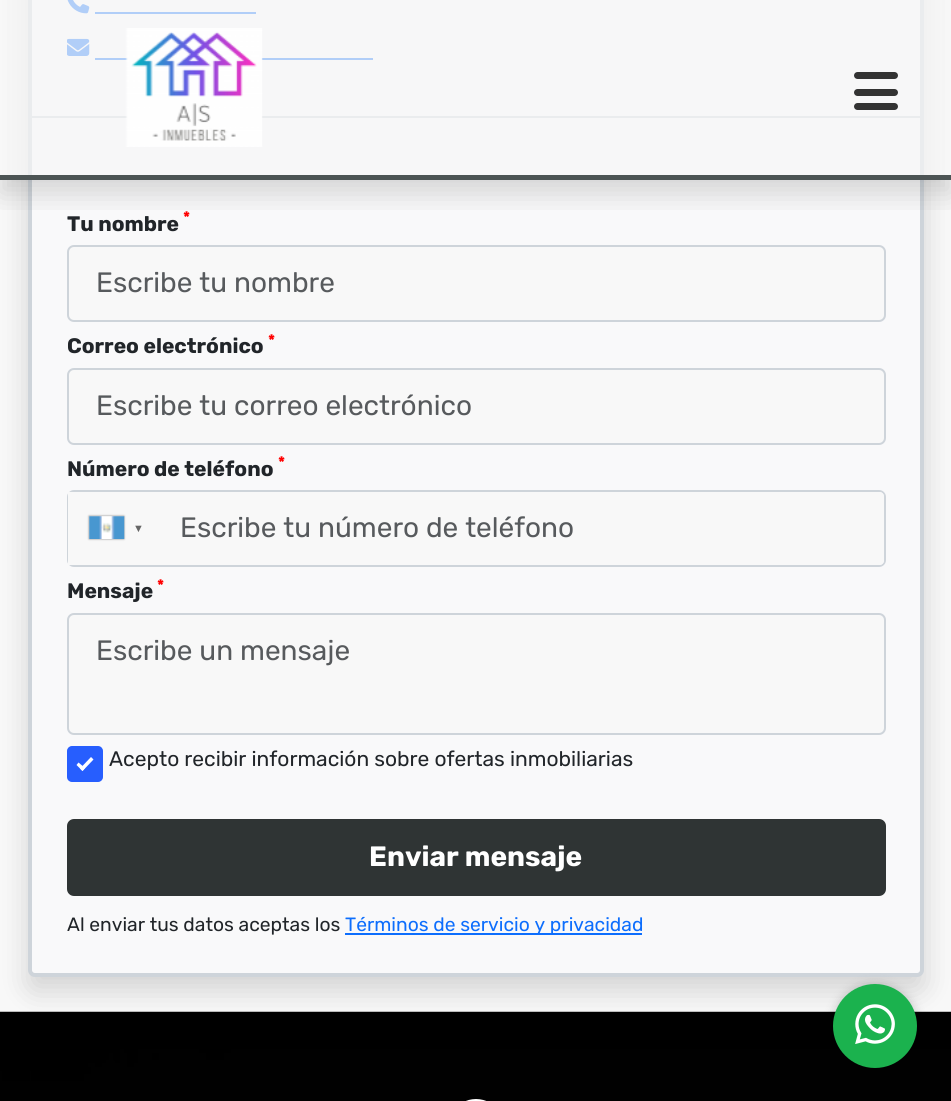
import math
import cairo


def write_spaced(ctx, x, y, s, letter, word):
	ctx.move_to(x, y)
	for ch in s:
		ctx.show_text(ch)
		ctx.rel_move_to(letter + word * (ch == ' '), 0)

def round_path(ctx, x, y, w, h, r):
	ctx.new_sub_path()
	for i, (u, v) in enumerate([(x + w - r, y + h - r), (x + r, y + h - r), (x + r, y + r), (x + w - r, y + r)]):
		ctx.arc(u, v, r, i * math.pi / 2, (i + 1) * math.pi / 2)
	ctx.close_path()

def blur_box(ctx, x, y, w, h, r, blur, alpha):
	ctx.push_group_with_content(cairo.CONTENT_ALPHA)
	ctx.set_operator(cairo.OPERATOR_SOURCE)
	for i in range(15, -16, -2):
		e = blur * i / 6
		if min(w, h) + 2 * e > 0:
			ctx.set_source_rgba(0, 0, 0, alpha * math.erfc((i - 1) / 8.5) / 2)
			round_path(ctx, x - e, y - e, w + 2 * e, h + 2 * e, max(0, min(r + e + blur * .6, min(w, h) / 2 + e)))
			ctx.fill()
	ctx.mask(ctx.pop_group())

def paste(ctx, path, x, y, w, h):
	ctx.save()
	ctx.set_source_surface(cairo.ImageSurface.create_from_png(path), x, y)
	ctx.rectangle(x, y, w, h)
	ctx.fill()
	ctx.restore()

def draw(ctx):
	ctx.set_source_rgb(0.969, 0.969, 0.969)
	ctx.paint()
	ctx.set_source_rgb(0, 0, 0)
	blur_box(ctx, 28, -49, 896, 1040, 7, 14, 0.15)
	ctx.set_source_rgb(0.973, 0.976, 0.98)
	round_path(ctx, 30, -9, 892, 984, 5)
	ctx.fill_preserve()
	ctx.set_source_rgb(0.808, 0.831, 0.855)
	ctx.set_line_width(4)
	ctx.stroke()
	ctx.rectangle(32, 116, 889, 2)
	ctx.fill()
	paste(ctx, 'media/2.png', 67, 0, 23, 14)
	ctx.set_source_rgb(0.051, 0.431, 0.992)
	ctx.rectangle(95, 12, 161, 2)
	ctx.fill()
	paste(ctx, 'media/3.png', 67, 38, 23, 18)
	ctx.rectangle(95, 58, 278, 2)
	ctx.fill()
	ctx.save()
	ctx.rectangle(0, 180, 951, 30)
	ctx.clip()
	ctx.set_source_rgb(0, 0, 0)
	blur_box(ctx, 0, 14, 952, 180, 0, 14, 0.15)
	ctx.restore()
	ctx.set_source_rgba(0.969, 0.969, 0.969, 0.7)
	ctx.rectangle(10, 0, 932, 175)
	ctx.fill()
	ctx.set_source_rgb(0.298, 0.329, 0.329)
	ctx.rectangle(0, 175, 951, 5)
	ctx.fill()
	paste(ctx, 'media/1.png', 125, 28, 138, 119)
	ctx.set_source_rgb(0.2, 0.2, 0.2)
	round_path(ctx, 854, 72, 44, 7, 3.5)
	ctx.fill()
	round_path(ctx, 854, 89, 44, 7, 3.5)
	ctx.fill()
	round_path(ctx, 854, 103, 44, 7, 3.5)
	ctx.fill()
	ctx.select_font_face('Rubik', cairo.FONT_SLANT_NORMAL, cairo.FONT_WEIGHT_BOLD)
	ctx.set_font_size(16)
	ctx.set_source_rgb(1, 0, 0)
	ctx.move_to(183, 223)
	ctx.show_text('*')
	ctx.set_font_size(21)
	ctx.set_source_rgb(0.129, 0.145, 0.161)
	ctx.move_to(67, 231)
	ctx.show_text('Tu nombre')
	ctx.set_source_rgb(0.969, 0.969, 0.969)
	round_path(ctx, 68, 246, 817, 75, 6)
	ctx.fill_preserve()
	ctx.set_source_rgb(0.808, 0.831, 0.855)
	ctx.set_line_width(2)
	ctx.stroke()
	ctx.select_font_face('Rubik')
	ctx.set_font_size(28)
	ctx.set_source_rgb(0.341, 0.353, 0.365)
	ctx.move_to(96, 292)
	ctx.show_text('Escribe tu nombre')
	ctx.select_font_face('Rubik', cairo.FONT_SLANT_NORMAL, cairo.FONT_WEIGHT_BOLD)
	ctx.set_font_size(21)
	ctx.set_source_rgb(0.129, 0.145, 0.161)
	ctx.move_to(67, 353)
	ctx.show_text('Correo electrónico')
	ctx.set_font_size(16)
	ctx.set_source_rgb(1, 0, 0)
	ctx.move_to(268, 346)
	ctx.show_text('*')
	ctx.set_source_rgb(0.969, 0.969, 0.969)
	round_path(ctx, 68, 369, 817, 75, 6)
	ctx.fill_preserve()
	ctx.set_source_rgb(0.808, 0.831, 0.855)
	ctx.stroke()
	ctx.select_font_face('Rubik')
	ctx.set_font_size(28)
	ctx.set_source_rgb(0.341, 0.353, 0.365)
	ctx.move_to(96, 415)
	ctx.show_text('Escribe tu correo electrónico')
	ctx.select_font_face('Rubik', cairo.FONT_SLANT_NORMAL, cairo.FONT_WEIGHT_BOLD)
	ctx.set_font_size(16)
	ctx.set_source_rgb(1, 0, 0)
	ctx.move_to(278, 468)
	ctx.show_text('*')
	ctx.set_font_size(21)
	ctx.set_source_rgb(0.129, 0.145, 0.161)
	ctx.move_to(67, 476)
	ctx.show_text('Número de teléfono')
	round_path(ctx, 68, 491, 817, 75, 6)
	ctx.set_source_rgb(0.808, 0.831, 0.855)
	ctx.stroke()
	ctx.set_source_rgb(0.969, 0.969, 0.969)
	ctx.rectangle(68, 492, 100, 73)
	ctx.fill()
	ctx.set_source_rgb(0.533, 0.533, 0.533)
	blur_box(ctx, 89, 516, 35, 23, 0, 1, 1)
	ctx.set_source_rgb(0.859, 0.859, 0.859)
	ctx.rectangle(89, 516, 35, 23)
	ctx.fill()
	paste(ctx, 'media/4.png', 89, 516, 36, 23)
	ctx.select_font_face('Liberation Sans', cairo.FONT_SLANT_NORMAL, cairo.FONT_WEIGHT_BOLD)
	ctx.set_font_size(11)
	ctx.set_source_rgb(0.4, 0.4, 0.4)
	write_spaced(ctx, 133, 532, '▼', 11, 0)
	ctx.set_source_rgb(0.969, 0.969, 0.969)
	ctx.new_path()
	ctx.move_to(168, 492)
	ctx.line_to(880, 492)
	ctx.curve_to(882, 492, 884, 494, 884, 496)
	ctx.line_to(884, 561)
	ctx.curve_to(884, 563, 882, 565, 880, 565)
	ctx.line_to(168, 565)
	ctx.close_path()
	ctx.fill()
	ctx.select_font_face('Rubik')
	ctx.set_font_size(28)
	ctx.set_source_rgb(0.341, 0.353, 0.365)
	ctx.move_to(180, 537)
	ctx.show_text('Escribe tu número de teléfono')
	ctx.select_font_face('Rubik', cairo.FONT_SLANT_NORMAL, cairo.FONT_WEIGHT_BOLD)
	ctx.set_font_size(21)
	ctx.set_source_rgb(0.129, 0.145, 0.161)
	ctx.move_to(67, 598)
	ctx.show_text('Mensaje')
	ctx.set_font_size(16)
	ctx.set_source_rgb(1, 0, 0)
	ctx.move_to(157, 591)
	ctx.show_text('*')
	ctx.set_source_rgb(0.969, 0.969, 0.969)
	round_path(ctx, 68, 614, 817, 120, 6)
	ctx.fill_preserve()
	ctx.set_source_rgb(0.808, 0.831, 0.855)
	ctx.stroke()
	ctx.select_font_face('Rubik')
	ctx.set_font_size(28)
	ctx.set_source_rgb(0.341, 0.353, 0.365)
	ctx.move_to(96, 660)
	ctx.show_text('Escribe un mensaje')
	ctx.set_source_rgb(0.153, 0.369, 0.996)
	round_path(ctx, 68, 747, 34, 34, 4)
	ctx.fill_preserve()
	ctx.stroke()
	ctx.set_source_rgb(1, 1, 1)
	ctx.new_path()
	ctx.move_to(91, 757)
	ctx.line_to(93.5, 759.5)
	ctx.line_to(82.5, 771)
	ctx.line_to(80, 768.5)
	ctx.close_path()
	ctx.fill()
	ctx.new_path()
	ctx.move_to(78.5, 762.5)
	ctx.line_to(85, 768)
	ctx.line_to(82.5, 771)
	ctx.line_to(76.5, 765)
	ctx.close_path()
	ctx.fill()
	ctx.set_font_size(21)
	ctx.set_source_rgb(0.129, 0.145, 0.161)
	ctx.move_to(109, 766)
	ctx.show_text('Acepto recibir información sobre ofertas inmobiliarias')
	ctx.set_source_rgb(0.184, 0.204, 0.204)
	round_path(ctx, 68, 820, 817, 75, 6)
	ctx.fill_preserve()
	ctx.stroke()
	ctx.select_font_face('Rubik', cairo.FONT_SLANT_NORMAL, cairo.FONT_WEIGHT_BOLD)
	ctx.set_font_size(28)
	ctx.set_source_rgb(1, 1, 1)
	ctx.move_to(369, 866)
	ctx.show_text('Enviar mensaje')
	ctx.select_font_face('Rubik')
	ctx.set_font_size(19.25)
	ctx.set_source_rgb(0.129, 0.145, 0.161)
	ctx.move_to(67, 931)
	ctx.show_text('Al enviar tus datos aceptas los')
	ctx.set_source_rgb(0.051, 0.431, 0.992)
	ctx.rectangle(345, 933, 297, 2)
	ctx.fill()
	ctx.move_to(345, 931)
	ctx.show_text('Términos de servicio y privacidad')
	paste(ctx, 'media/6.png', 0, 1011, 951, 90)
	ctx.set_source_rgb(0, 0, 0)
	blur_box(ctx, 833, 984, 84, 84, 42, 5, 0.2)
	ctx.set_source_rgb(0.106, 0.698, 0.306)
	ctx.arc(875, 1026, 42, 0, 2 * math.pi)
	ctx.fill()
	paste(ctx, 'media/5.png', 855, 1004, 40, 40)
	paste(ctx, 'media/7.png', 466, 1099, 21, 2)


surface = cairo.ImageSurface(cairo.FORMAT_RGB24, 951, 1101)
ctx = cairo.Context(surface)
options = cairo.FontOptions()
options.set_hint_metrics(cairo.HINT_METRICS_OFF)
options.set_hint_style(cairo.HINT_STYLE_NONE)
ctx.set_font_options(options)
ctx.set_miter_limit(4)
draw(ctx)
surface.write_to_png('image.png')
